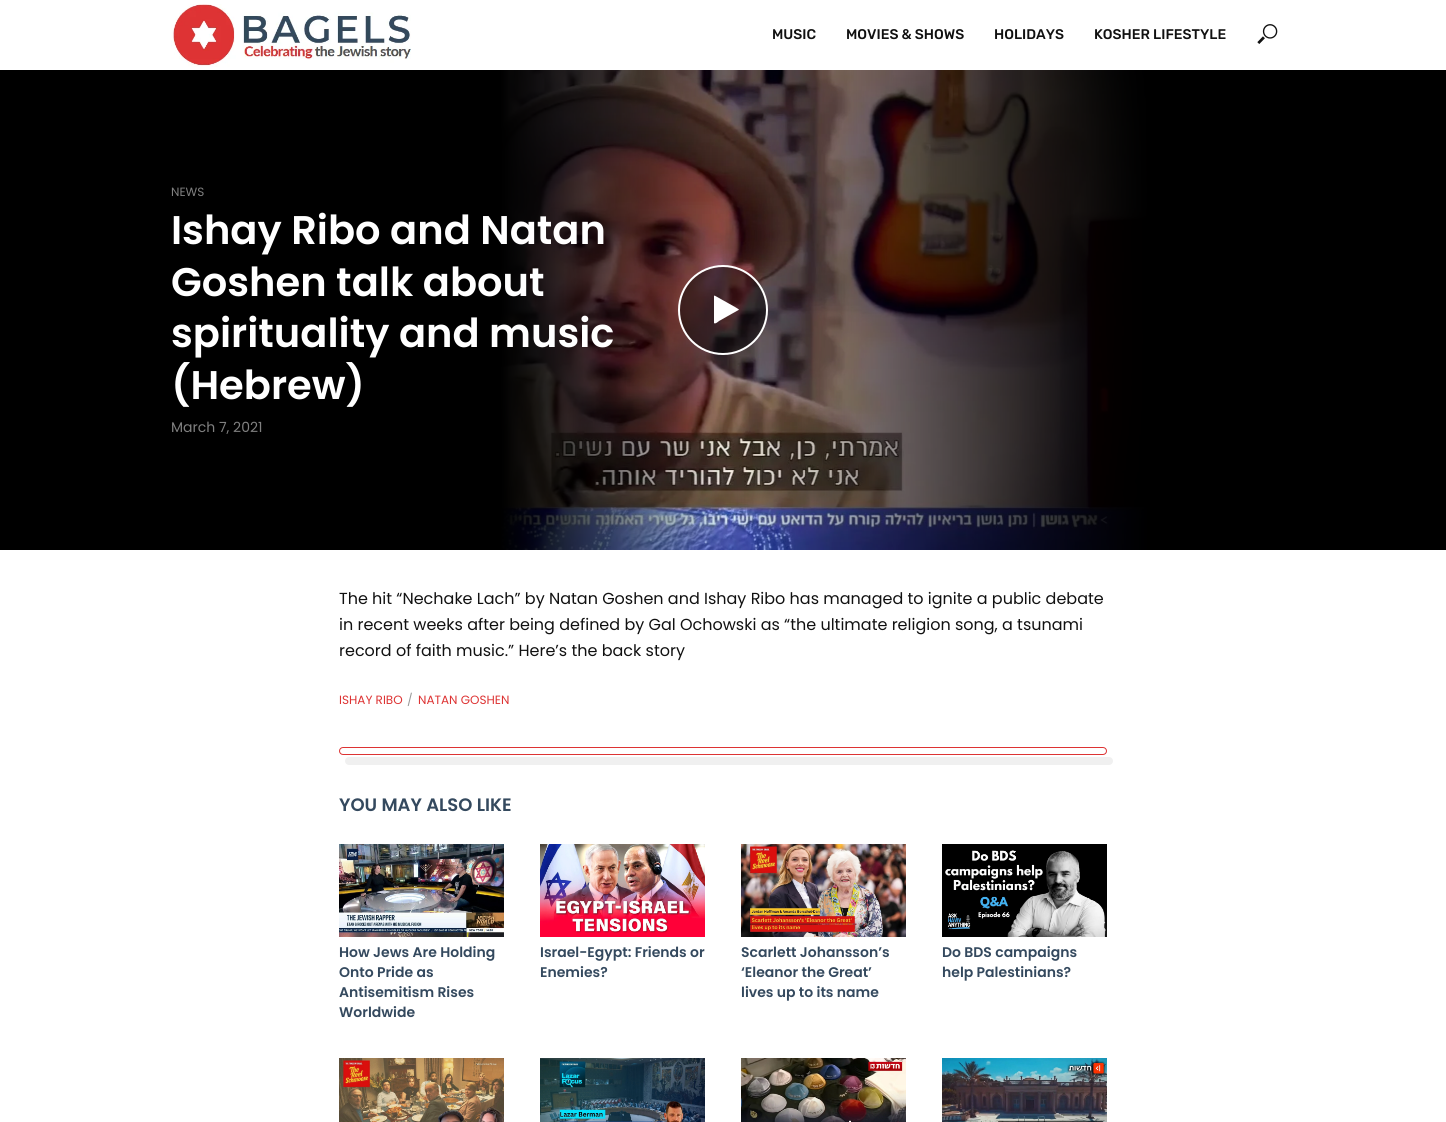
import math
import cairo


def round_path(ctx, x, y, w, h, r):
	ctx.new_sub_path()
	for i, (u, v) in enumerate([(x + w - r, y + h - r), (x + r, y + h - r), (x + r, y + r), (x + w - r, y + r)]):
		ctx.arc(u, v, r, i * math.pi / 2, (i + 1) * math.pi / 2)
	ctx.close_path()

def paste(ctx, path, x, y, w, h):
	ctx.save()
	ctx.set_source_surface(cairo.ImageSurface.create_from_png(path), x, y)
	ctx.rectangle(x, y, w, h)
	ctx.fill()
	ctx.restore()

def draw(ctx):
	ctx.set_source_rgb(1, 1, 1)
	ctx.paint()
	paste(ctx, 'media/1.png', 171, 4, 240, 63)
	ctx.select_font_face('Rubik Medium')
	ctx.set_font_size(14)
	ctx.set_source_rgb(0.067, 0.067, 0.067)
	for x, y, s in [
		(772, 39, 'MUSIC'),
		(846, 39, 'MOVIES & SHOWS'),
		(994, 39, 'HOLIDAYS'),
		(1094, 39, 'KOSHER LIFESTYLE'),
	]:
		ctx.move_to(x, y)
		ctx.show_text(s)
	paste(ctx, 'media/2.png', 1257, 24, 21, 20)
	ctx.set_source_rgb(0, 0, 0)
	ctx.rectangle(0, 70, 1446, 480)
	ctx.fill()
	paste(ctx, 'media/3.png', 296, 70, 854, 480)
	ctx.set_source_rgba(0, 0, 0, 0.5)
	ctx.arc(723, 310, 44, 0, 2 * math.pi)
	ctx.fill_preserve()
	ctx.set_source_rgb(1, 1, 1)
	ctx.stroke()
	ctx.new_path()
	ctx.move_to(738.5, 310)
	ctx.line_to(719, 321)
	ctx.curve_to(718.5, 321.5, 715, 324.5, 714, 323)
	ctx.line_to(714, 296)
	ctx.line_to(714.5, 295.5)
	ctx.line_to(735, 307)
	ctx.line_to(739, 309.5)
	ctx.close_path()
	ctx.fill()
	ctx.select_font_face('Poppins')
	ctx.set_font_size(12)
	ctx.set_source_rgb(0.502, 0.502, 0.502)
	ctx.move_to(171, 196)
	ctx.show_text('NEWS')
	ctx.select_font_face('Poppins SemiBold')
	ctx.set_font_size(40)
	ctx.set_source_rgb(1, 1, 1)
	for x, y, s in [
		(171, 244, 'Ishay Ribo and Natan'),
		(171, 296, 'Goshen talk about'),
		(171, 347, 'spirituality and music'),
		(171, 399, '(Hebrew)'),
	]:
		ctx.move_to(x, y)
		ctx.show_text(s)
	ctx.select_font_face('Poppins')
	ctx.set_font_size(14)
	ctx.set_source_rgb(0.502, 0.502, 0.502)
	ctx.move_to(171, 432)
	ctx.show_text('March 7, 2021')
	ctx.set_font_size(16)
	ctx.set_source_rgb(0.067, 0.067, 0.067)
	for x, y, s in [
		(339, 604, 'The hit “Nechake Lach” by Natan Goshen and Ishay Ribo has managed to ignite a public debate'),
		(339, 630, 'in recent weeks after being defined by Gal Ochowski as “the ultimate religion song, a tsunami'),
		(339, 656, 'record of faith music.” Here’s the back story'),
	]:
		ctx.move_to(x, y)
		ctx.show_text(s)
	ctx.set_font_size(12)
	ctx.set_source_rgb(0.867, 0.2, 0.2)
	ctx.move_to(339, 704)
	ctx.show_text('ISHAY RIBO')
	ctx.set_source_rgb(0.6, 0.6, 0.6)
	ctx.move_to(407, 704)
	ctx.show_text('/')
	ctx.set_source_rgb(0.867, 0.2, 0.2)
	ctx.move_to(418, 704)
	ctx.show_text('NATAN GOSHEN')
	ctx.set_source_rgb(0.941, 0.941, 0.941)
	round_path(ctx, 345, 757, 768, 8, 4)
	ctx.fill()
	round_path(ctx, 339.5, 747.5, 767, 7, 3.5)
	ctx.set_source_rgb(0.867, 0.2, 0.2)
	ctx.set_line_width(1)
	ctx.stroke()
	ctx.select_font_face('Poppins SemiBold')
	ctx.set_font_size(18)
	ctx.set_source_rgb(0.204, 0.286, 0.369)
	ctx.move_to(339, 811)
	ctx.show_text('YOU MAY ALSO LIKE')
	paste(ctx, 'media/4.png', 339, 844, 165, 93)
	ctx.set_font_size(14)
	for x, y, s in [
		(339, 957, 'How Jews Are Holding'),
		(339, 977, 'Onto Pride as'),
		(339, 997, 'Antisemitism Rises'),
		(339, 1017, 'Worldwide'),
	]:
		ctx.move_to(x, y)
		ctx.show_text(s)
	paste(ctx, 'media/5.png', 540, 844, 165, 93)
	ctx.move_to(540, 957)
	ctx.show_text('Israel-Egypt: Friends or')
	ctx.move_to(540, 977)
	ctx.show_text('Enemies?')
	paste(ctx, 'media/6.png', 741, 844, 165, 93)
	for x, y, s in [
		(741, 957, 'Scarlett Johansson’s'),
		(741, 977, '‘Eleanor the Great’'),
		(741, 997, 'lives up to its name'),
	]:
		ctx.move_to(x, y)
		ctx.show_text(s)
	paste(ctx, 'media/7.png', 942, 844, 165, 93)
	ctx.move_to(942, 957)
	ctx.show_text('Do BDS campaigns')
	ctx.move_to(942, 977)
	ctx.show_text('help Palestinians?')
	paste(ctx, 'media/8.png', 339, 1058, 165, 64)
	paste(ctx, 'media/9.png', 540, 1058, 165, 64)
	paste(ctx, 'media/10.png', 741, 1058, 165, 64)
	paste(ctx, 'media/11.png', 942, 1058, 165, 64)


surface = cairo.ImageSurface(cairo.FORMAT_RGB24, 1446, 1122)
ctx = cairo.Context(surface)
options = cairo.FontOptions()
options.set_hint_metrics(cairo.HINT_METRICS_OFF)
options.set_hint_style(cairo.HINT_STYLE_NONE)
ctx.set_font_options(options)
ctx.set_miter_limit(4)
draw(ctx)
surface.write_to_png('image.png')
